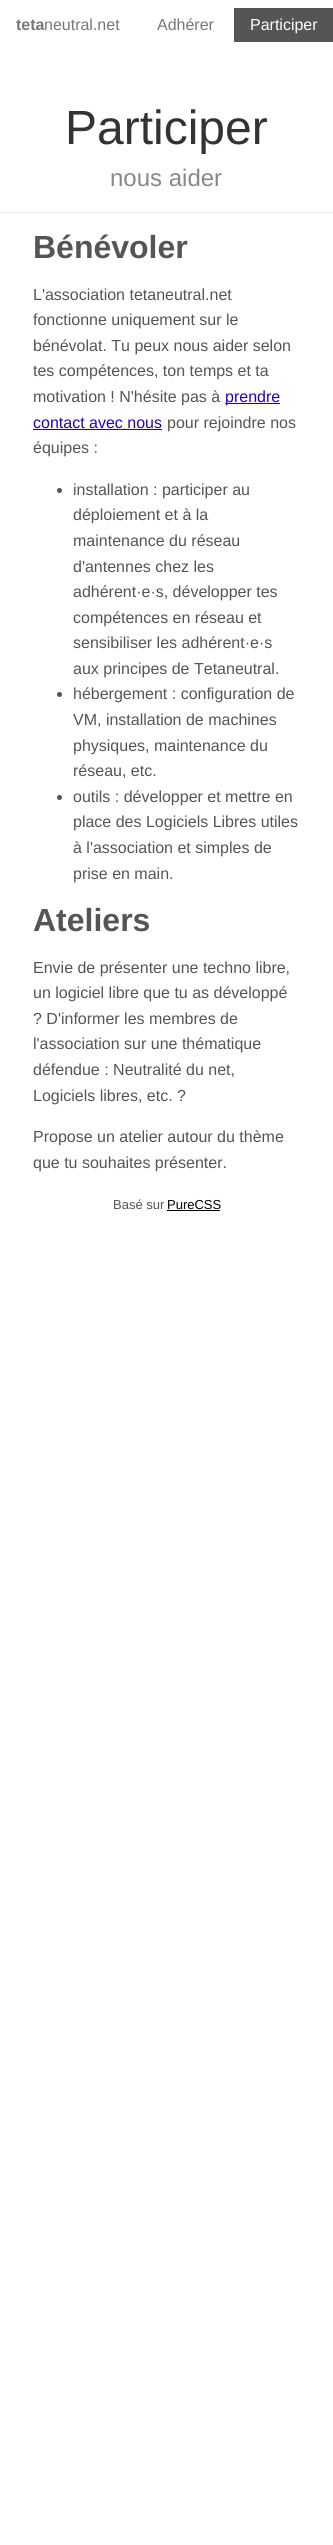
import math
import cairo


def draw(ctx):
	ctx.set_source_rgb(1, 1, 1)
	ctx.paint()
	ctx.select_font_face('Liberation Sans', cairo.FONT_SLANT_NORMAL, cairo.FONT_WEIGHT_BOLD)
	ctx.set_font_size(16)
	ctx.set_source_rgb(0.467, 0.467, 0.467)
	ctx.move_to(16, 30)
	ctx.show_text('teta')
	ctx.select_font_face('Liberation Sans')
	ctx.move_to(44, 30)
	ctx.show_text('neutral.net')
	ctx.move_to(157, 30)
	ctx.show_text('Adhérer')
	ctx.set_source_rgb(0.333, 0.333, 0.333)
	ctx.rectangle(234, 8, 99, 34)
	ctx.fill()
	ctx.set_source_rgb(1, 1, 1)
	ctx.move_to(250, 30)
	ctx.show_text('Participer')
	ctx.set_source_rgb(0.933, 0.933, 0.933)
	ctx.rectangle(0, 212, 333, 1)
	ctx.fill()
	ctx.set_font_size(48)
	ctx.set_source_rgb(0.2, 0.2, 0.2)
	ctx.move_to(65, 144)
	ctx.show_text('Participer')
	ctx.set_font_size(24)
	ctx.set_source_rgb(0.533, 0.533, 0.533)
	ctx.move_to(110, 186)
	ctx.show_text('nous aider')
	ctx.select_font_face('Liberation Sans', cairo.FONT_SLANT_NORMAL, cairo.FONT_WEIGHT_BOLD)
	ctx.set_font_size(32)
	ctx.set_source_rgb(0.333, 0.333, 0.333)
	ctx.move_to(33, 258)
	ctx.show_text('Bénévoler')
	ctx.select_font_face('Liberation Sans')
	ctx.set_font_size(16)
	for x, y, s in [
		(33, 300, 'L\'association tetaneutral.net'),
		(33, 325, 'fonctionne uniquement sur le'),
		(33, 351, 'bénévolat. Tu peux nous aider selon'),
		(33, 376, 'tes compétences, ton temps et ta'),
		(33, 402, 'motivation ! N\'hésite pas à'),
	]:
		ctx.move_to(x, y)
		ctx.show_text(s)
	ctx.set_source_rgb(0.133, 0, 0.8)
	ctx.rectangle(225, 403, 55, 1)
	ctx.fill()
	ctx.move_to(225, 402)
	ctx.show_text('prendre')
	ctx.move_to(33, 428)
	ctx.show_text('contact avec nous')
	ctx.rectangle(33, 429, 129, 1)
	ctx.fill()
	ctx.set_source_rgb(0.333, 0.333, 0.333)
	ctx.move_to(167, 428)
	ctx.show_text('pour rejoindre nos')
	ctx.move_to(33, 453)
	ctx.show_text('équipes :')
	ctx.new_path()
	ctx.arc(59.5, 490.5, 2.5, 0, 2 * math.pi)
	ctx.fill()
	for x, y, s in [
		(73, 495, 'installation : participer au'),
		(73, 520, 'déploiement et à la'),
		(73, 546, 'maintenance du réseau'),
		(73, 572, 'd\'antennes chez les'),
		(73, 597, 'adhérent·e·s, développer tes'),
		(73, 623, 'compétences en réseau et'),
		(73, 648, 'sensibiliser les adhérent·e·s'),
		(73, 674, 'aux principes de Tetaneutral.'),
	]:
		ctx.move_to(x, y)
		ctx.show_text(s)
	ctx.new_path()
	ctx.arc(59.5, 694.5, 2.5, 0, 2 * math.pi)
	ctx.fill()
	for x, y, s in [
		(73, 699, 'hébergement : configuration de'),
		(73, 725, 'VM, installation de machines'),
		(73, 751, 'physiques, maintenance du'),
		(73, 776, 'réseau, etc.'),
	]:
		ctx.move_to(x, y)
		ctx.show_text(s)
	ctx.new_path()
	ctx.arc(59.5, 797.5, 2.5, 0, 2 * math.pi)
	ctx.fill()
	for x, y, s in [
		(73, 802, 'outils : développer et mettre en'),
		(73, 827, 'place des Logiciels Libres utiles'),
		(73, 853, 'à l\'association et simples de'),
		(73, 879, 'prise en main.'),
	]:
		ctx.move_to(x, y)
		ctx.show_text(s)
	ctx.select_font_face('Liberation Sans', cairo.FONT_SLANT_NORMAL, cairo.FONT_WEIGHT_BOLD)
	ctx.set_font_size(32)
	ctx.move_to(33, 931)
	ctx.show_text('Ateliers')
	ctx.select_font_face('Liberation Sans')
	ctx.set_font_size(16)
	for x, y, s in [
		(33, 973, 'Envie de présenter une techno libre,'),
		(33, 998, 'un logiciel libre que tu as développé'),
		(33, 1024, '? D\'informer les membres de'),
		(33, 1049, 'l\'association sur une thématique'),
		(33, 1075, 'défendue : Neutralité du net,'),
		(33, 1101, 'Logiciels libres, etc. ?'),
		(33, 1142, 'Propose un atelier autour du thème'),
		(33, 1168, 'que tu souhaites présenter.'),
	]:
		ctx.move_to(x, y)
		ctx.show_text(s)
	ctx.set_font_size(13)
	ctx.move_to(113, 1209)
	ctx.show_text('Basé sur')
	ctx.set_source_rgb(0, 0, 0)
	ctx.move_to(167, 1209)
	ctx.show_text('PureCSS')
	ctx.rectangle(167, 1210, 53, 1)
	ctx.fill()


surface = cairo.ImageSurface(cairo.FORMAT_RGB24, 333, 2545)
ctx = cairo.Context(surface)
options = cairo.FontOptions()
options.set_hint_metrics(cairo.HINT_METRICS_OFF)
options.set_hint_style(cairo.HINT_STYLE_NONE)
ctx.set_font_options(options)
ctx.set_miter_limit(4)
draw(ctx)
surface.write_to_png('image.png')
